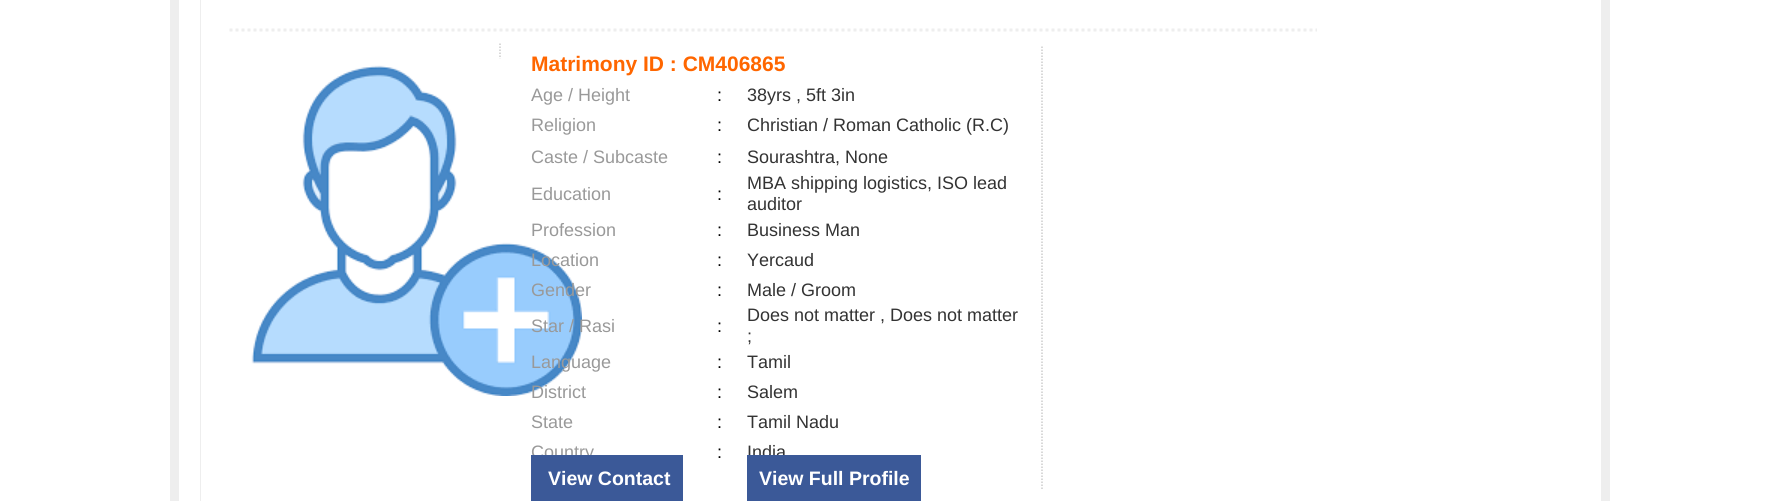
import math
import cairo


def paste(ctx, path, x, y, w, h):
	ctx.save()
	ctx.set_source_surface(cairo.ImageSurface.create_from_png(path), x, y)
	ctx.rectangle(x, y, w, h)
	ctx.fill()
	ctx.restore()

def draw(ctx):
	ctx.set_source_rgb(1, 1, 1)
	ctx.paint()
	ctx.rectangle(174.5, -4.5, 1431, 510)
	ctx.set_source_rgb(0.933, 0.933, 0.933)
	ctx.set_line_width(9)
	ctx.stroke()
	ctx.rectangle(201, -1, 1111, 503)
	ctx.set_line_width(2)
	ctx.stroke()
	ctx.set_source_rgb(1, 1, 1)
	ctx.rectangle(201, 0, 1112, 501)
	ctx.fill()
	ctx.new_path()
	ctx.move_to(229.5, 30)
	ctx.line_to(1317, 30)
	ctx.set_source_rgb(0.933, 0.933, 0.933)
	ctx.set_line_width(3)
	ctx.set_dash([3, 3])
	ctx.stroke()
	ctx.new_path()
	ctx.move_to(500, 43.5)
	ctx.line_to(500, 328.5)
	ctx.set_source_rgb(0.8, 0.8, 0.8)
	ctx.set_line_width(1.5)
	ctx.set_dash([1.5, 1.5])
	ctx.stroke()
	paste(ctx, 'media/1.png', 251, 58, 331, 338)
	ctx.new_path()
	ctx.move_to(1042, 46.5)
	ctx.line_to(1042, 489)
	ctx.stroke()
	ctx.select_font_face('Liberation Sans', cairo.FONT_SLANT_NORMAL, cairo.FONT_WEIGHT_BOLD)
	ctx.set_font_size(21)
	ctx.set_source_rgb(1, 0.4, 0)
	ctx.move_to(531, 71)
	ctx.show_text('Matrimony ID : CM406865')
	ctx.select_font_face('Liberation Sans')
	ctx.set_font_size(18)
	ctx.set_source_rgb(0.6, 0.6, 0.6)
	ctx.move_to(531, 101)
	ctx.show_text('Age / Height')
	ctx.set_source_rgb(0, 0, 0)
	ctx.move_to(717, 101)
	ctx.show_text(':')
	ctx.set_source_rgb(0.2, 0.2, 0.2)
	ctx.move_to(747, 101)
	ctx.show_text('38yrs , 5ft 3in')
	ctx.set_source_rgb(0.6, 0.6, 0.6)
	ctx.move_to(531, 131)
	ctx.show_text('Religion')
	ctx.set_source_rgb(0, 0, 0)
	ctx.move_to(717, 131)
	ctx.show_text(':')
	ctx.set_source_rgb(0.2, 0.2, 0.2)
	ctx.move_to(747, 131)
	ctx.show_text('Christian / Roman Catholic (R.C)')
	ctx.set_source_rgb(0.6, 0.6, 0.6)
	ctx.move_to(531, 163)
	ctx.show_text('Caste / Subcaste')
	ctx.set_source_rgb(0, 0, 0)
	ctx.move_to(717, 163)
	ctx.show_text(':')
	ctx.set_source_rgb(0.2, 0.2, 0.2)
	ctx.move_to(747, 163)
	ctx.show_text('Sourashtra, None')
	ctx.set_source_rgb(0.6, 0.6, 0.6)
	ctx.move_to(531, 200)
	ctx.show_text('Education')
	ctx.set_source_rgb(0, 0, 0)
	ctx.move_to(717, 200)
	ctx.show_text(':')
	ctx.set_source_rgb(0.2, 0.2, 0.2)
	ctx.move_to(747, 189)
	ctx.show_text('MBA shipping logistics, ISO lead')
	ctx.move_to(747, 210)
	ctx.show_text('auditor')
	ctx.set_source_rgb(0.6, 0.6, 0.6)
	ctx.move_to(531, 236)
	ctx.show_text('Profession')
	ctx.set_source_rgb(0, 0, 0)
	ctx.move_to(717, 236)
	ctx.show_text(':')
	ctx.set_source_rgb(0.2, 0.2, 0.2)
	ctx.move_to(747, 236)
	ctx.show_text('Business Man')
	ctx.set_source_rgb(0.6, 0.6, 0.6)
	ctx.move_to(531, 266)
	ctx.show_text('Location')
	ctx.set_source_rgb(0, 0, 0)
	ctx.move_to(717, 266)
	ctx.show_text(':')
	ctx.set_source_rgb(0.2, 0.2, 0.2)
	ctx.move_to(747, 266)
	ctx.show_text('Yercaud')
	ctx.set_source_rgb(0.6, 0.6, 0.6)
	ctx.move_to(531, 296)
	ctx.show_text('Gender')
	ctx.set_source_rgb(0, 0, 0)
	ctx.move_to(717, 296)
	ctx.show_text(':')
	ctx.set_source_rgb(0.2, 0.2, 0.2)
	ctx.move_to(747, 296)
	ctx.show_text('Male / Groom')
	ctx.set_source_rgb(0.6, 0.6, 0.6)
	ctx.move_to(531, 332)
	ctx.show_text('Star / Rasi')
	ctx.set_source_rgb(0, 0, 0)
	ctx.move_to(717, 332)
	ctx.show_text(':')
	ctx.set_source_rgb(0.2, 0.2, 0.2)
	ctx.move_to(747, 321)
	ctx.show_text('Does not matter , Does not matter')
	ctx.move_to(747, 342)
	ctx.show_text(';')
	ctx.set_source_rgb(0.6, 0.6, 0.6)
	ctx.move_to(531, 368)
	ctx.show_text('Language')
	ctx.set_source_rgb(0, 0, 0)
	ctx.move_to(717, 368)
	ctx.show_text(':')
	ctx.set_source_rgb(0.2, 0.2, 0.2)
	ctx.move_to(747, 368)
	ctx.show_text('Tamil')
	ctx.set_source_rgb(0.6, 0.6, 0.6)
	ctx.move_to(531, 398)
	ctx.show_text('District')
	ctx.set_source_rgb(0, 0, 0)
	ctx.move_to(717, 398)
	ctx.show_text(':')
	ctx.set_source_rgb(0.2, 0.2, 0.2)
	ctx.move_to(747, 398)
	ctx.show_text('Salem')
	ctx.set_source_rgb(0.6, 0.6, 0.6)
	ctx.move_to(531, 428)
	ctx.show_text('State')
	ctx.set_source_rgb(0, 0, 0)
	ctx.move_to(717, 428)
	ctx.show_text(':')
	ctx.set_source_rgb(0.2, 0.2, 0.2)
	ctx.move_to(747, 428)
	ctx.show_text('Tamil Nadu')
	ctx.set_source_rgb(0.6, 0.6, 0.6)
	ctx.move_to(531, 458)
	ctx.show_text('Country')
	ctx.set_source_rgb(0, 0, 0)
	ctx.move_to(717, 458)
	ctx.show_text(':')
	ctx.set_source_rgb(0.2, 0.2, 0.2)
	ctx.move_to(747, 458)
	ctx.show_text('India')
	ctx.set_source_rgb(0.231, 0.349, 0.596)
	ctx.rectangle(531, 455, 152, 46)
	ctx.fill()
	ctx.select_font_face('Liberation Sans', cairo.FONT_SLANT_NORMAL, cairo.FONT_WEIGHT_BOLD)
	ctx.set_font_size(19.5)
	ctx.set_source_rgb(1, 1, 1)
	ctx.move_to(548, 485)
	ctx.show_text('View Contact')
	ctx.set_source_rgb(0.231, 0.349, 0.596)
	ctx.rectangle(747, 455, 174, 46)
	ctx.fill()
	ctx.set_source_rgb(1, 1, 1)
	ctx.move_to(759, 485)
	ctx.show_text('View Full Profile')


surface = cairo.ImageSurface(cairo.FORMAT_RGB24, 1777, 501)
ctx = cairo.Context(surface)
options = cairo.FontOptions()
options.set_hint_metrics(cairo.HINT_METRICS_OFF)
options.set_hint_style(cairo.HINT_STYLE_NONE)
ctx.set_font_options(options)
ctx.set_miter_limit(4)
draw(ctx)
surface.write_to_png('image.png')
